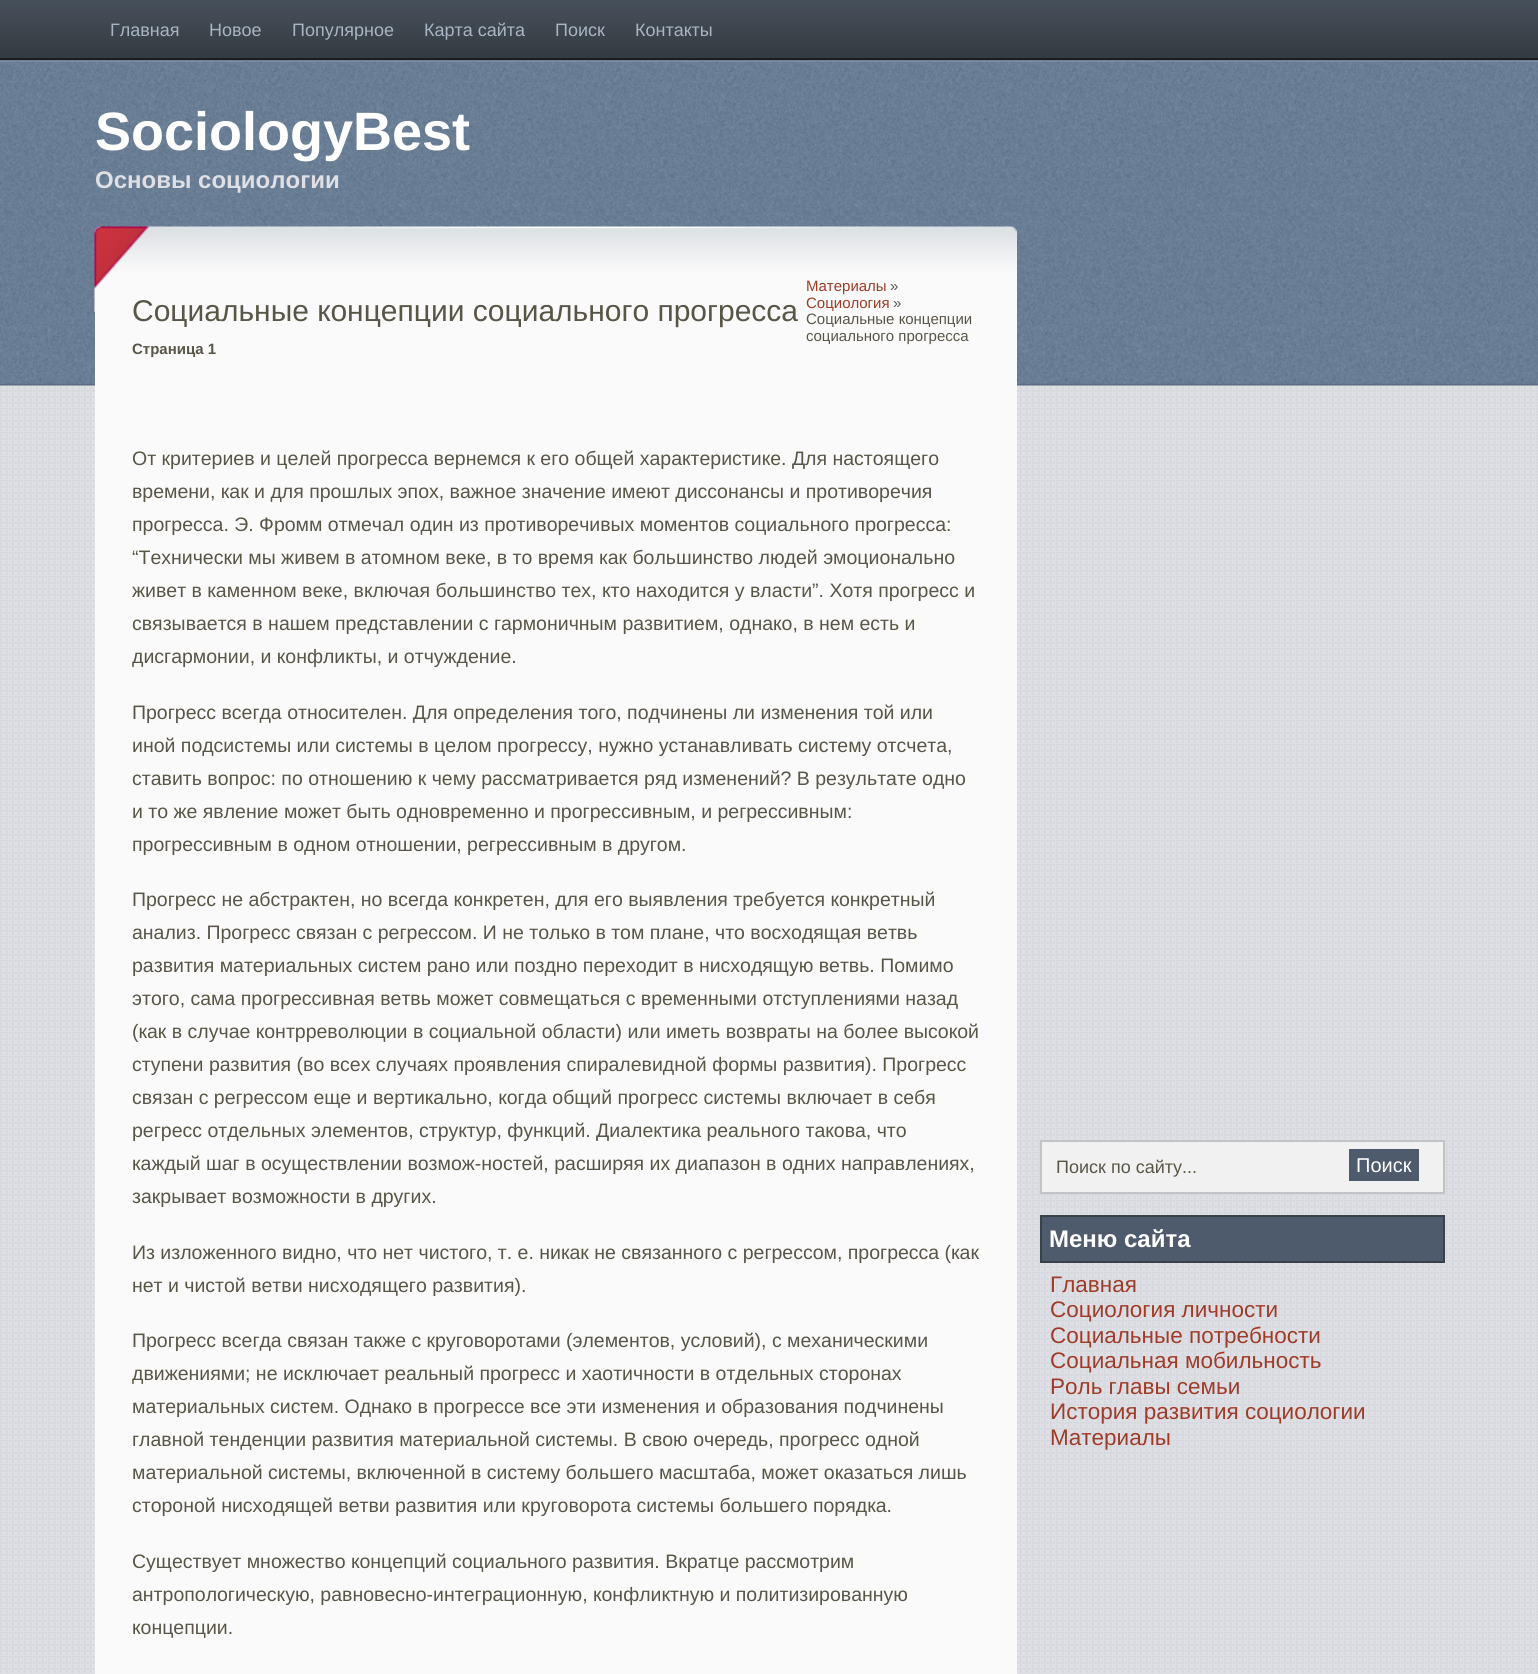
import math
import cairo


def paste(ctx, path, x, y, w, h):
	ctx.save()
	ctx.set_source_surface(cairo.ImageSurface.create_from_png(path), x, y)
	ctx.rectangle(x, y, w, h)
	ctx.fill()
	ctx.restore()

def draw(ctx):
	ctx.set_source_rgb(1, 1, 1)
	ctx.paint()
	paste(ctx, 'media/1.png', 0, 385, 1538, 1289)
	paste(ctx, 'media/2.png', 0, 0, 1538, 386)
	ctx.select_font_face('Liberation Sans')
	ctx.set_font_size(18)
	ctx.set_source_rgb(0.659, 0.71, 0.769)
	for x, y, s in [
		(110, 36, 'Главная'),
		(209, 36, 'Новое'),
		(292, 36, 'Популярное'),
		(424, 36, 'Карта сайта'),
		(555, 36, 'Поиск'),
		(635, 36, 'Контакты'),
	]:
		ctx.move_to(x, y)
		ctx.show_text(s)
	ctx.select_font_face('Liberation Sans', cairo.FONT_SLANT_NORMAL, cairo.FONT_WEIGHT_BOLD)
	ctx.set_font_size(54)
	ctx.set_source_rgb(1, 1, 1)
	ctx.move_to(95, 150)
	ctx.show_text('SociologyBest')
	ctx.set_font_size(24)
	ctx.set_source_rgb(0.871, 0.878, 0.898)
	ctx.move_to(95, 188)
	ctx.show_text('Основы социологии')
	ctx.set_source_rgb(0.98, 0.98, 0.98)
	ctx.rectangle(95, 312, 922, 1362)
	ctx.fill()
	paste(ctx, 'media/3.png', 94, 225, 923, 87)
	ctx.select_font_face('Liberation Sans')
	ctx.set_font_size(30)
	ctx.set_source_rgb(0.349, 0.337, 0.278)
	ctx.move_to(132, 321)
	ctx.show_text('Социальные концепции социального прогресса')
	ctx.select_font_face('Liberation Sans', cairo.FONT_SLANT_NORMAL, cairo.FONT_WEIGHT_BOLD)
	ctx.set_font_size(15)
	ctx.move_to(132, 354)
	ctx.show_text('Страница 1')
	ctx.select_font_face('Liberation Sans')
	ctx.set_source_rgb(0.624, 0.231, 0.153)
	ctx.move_to(806, 291)
	ctx.show_text('Материалы')
	ctx.set_source_rgb(0.349, 0.337, 0.278)
	ctx.move_to(890, 291)
	ctx.show_text('»')
	ctx.set_source_rgb(0.624, 0.231, 0.153)
	ctx.move_to(806, 308)
	ctx.show_text('Социология')
	ctx.set_source_rgb(0.349, 0.337, 0.278)
	for x, y, s in [
		(893, 308, '»'),
		(806, 324, 'Социальные концепции'),
		(806, 341, 'социального прогресса'),
	]:
		ctx.move_to(x, y)
		ctx.show_text(s)
	ctx.set_font_size(19.5)
	for x, y, s in [
		(132, 465, 'От критериев и целей прогресса вернемся к его общей характеристике. Для настоящего'),
		(132, 498, 'времени, как и для прошлых эпох, важное значение имеют диссонансы и противоречия'),
		(132, 531, 'прогресса. Э. Фромм отмечал один из противоречивых моментов социального прогресса:'),
		(132, 564, '“Технически мы живем в атомном веке, в то время как большинство людей эмоционально'),
		(132, 597, 'живет в каменном веке, включая большинство тех, кто находится у власти”. Хотя прогресс и'),
		(132, 630, 'связывается в нашем представлении с гармоничным развитием, однако, в нем есть и'),
		(132, 663, 'дисгармонии, и конфликты, и отчуждение.'),
		(132, 719, 'Прогресс всегда относителен. Для определения того, подчинены ли изменения той или'),
		(132, 752, 'иной подсистемы или системы в целом прогрессу, нужно устанавливать систему отсчета,'),
		(132, 785, 'ставить вопрос: по отношению к чему рассматривается ряд изменений? В результате одно'),
		(132, 818, 'и то же явление может быть одновременно и прогрессивным, и регрессивным:'),
		(132, 851, 'прогрессивным в одном отношении, регрессивным в другом.'),
		(132, 906, 'Прогресс не абстрактен, но всегда конкретен, для его выявления требуется конкретный'),
		(132, 939, 'анализ. Прогресс связан с регрессом. И не только в том плане, что восходящая ветвь'),
		(132, 972, 'развития материальных систем рано или поздно переходит в нисходящую ветвь. Помимо'),
		(132, 1005, 'этого, сама прогрессивная ветвь может совмещаться с временными отступлениями назад'),
		(132, 1038, '(как в случае контрреволюции в социальной области) или иметь возвраты на более высокой'),
		(132, 1071, 'ступени развития (во всех случаях проявления спиралевидной формы развития). Прогресс'),
		(132, 1104, 'связан с регрессом еще и вертикально, когда общий прогресс системы включает в себя'),
		(132, 1137, 'регресс отдельных элементов, структур, функций. Диалектика реального такова, что'),
		(132, 1170, 'каждый шаг в осуществлении возмож-ностей, расширяя их диапазон в одних направлениях,'),
		(132, 1203, 'закрывает возможности в других.'),
		(132, 1259, 'Из изложенного видно, что нет чистого, т. е. никак не связанного с регрессом, прогресса (как'),
		(132, 1292, 'нет и чистой ветви нисходящего развития).'),
		(132, 1347, 'Прогресс всегда связан также с круговоротами (элементов, условий), с механическими'),
		(132, 1380, 'движениями; не исключает реальный прогресс и хаотичности в отдельных сторонах'),
		(132, 1413, 'материальных систем. Однако в прогрессе все эти изменения и образования подчинены'),
		(132, 1446, 'главной тенденции развития материальной системы. В свою очередь, прогресс одной'),
		(132, 1479, 'материальной системы, включенной в систему большего масштаба, может оказаться лишь'),
		(132, 1512, 'стороной нисходящей ветви развития или круговорота системы большего порядка.'),
		(132, 1568, 'Существует множество концепций социального развития. Вкратце рассмотрим'),
		(132, 1601, 'антропологическую, равновесно-интеграционную, конфликтную и политизированную'),
		(132, 1634, 'концепции.'),
	]:
		ctx.move_to(x, y)
		ctx.show_text(s)
	ctx.set_source_rgb(0.945, 0.945, 0.945)
	ctx.rectangle(1041, 1141, 403, 52)
	ctx.fill_preserve()
	ctx.set_source_rgb(0.757, 0.765, 0.78)
	ctx.stroke()
	ctx.set_font_size(18)
	ctx.set_source_rgb(0.349, 0.337, 0.278)
	ctx.move_to(1056, 1173)
	ctx.show_text('Поиск по сайту...')
	ctx.set_source_rgb(0.302, 0.357, 0.424)
	ctx.rectangle(1349, 1149, 70, 32)
	ctx.fill()
	ctx.set_font_size(20)
	ctx.set_source_rgb(1, 1, 1)
	ctx.move_to(1356, 1172)
	ctx.show_text('Поиск')
	ctx.set_source_rgb(0.302, 0.357, 0.424)
	ctx.rectangle(1041, 1216, 403, 46)
	ctx.fill_preserve()
	ctx.set_source_rgb(0.224, 0.255, 0.286)
	ctx.stroke()
	ctx.select_font_face('Liberation Sans', cairo.FONT_SLANT_NORMAL, cairo.FONT_WEIGHT_BOLD)
	ctx.set_font_size(24)
	ctx.set_source_rgb(1, 1, 1)
	ctx.move_to(1049, 1247)
	ctx.show_text('Меню сайта')
	ctx.select_font_face('Liberation Sans')
	ctx.set_font_size(22.5)
	ctx.set_source_rgb(0.624, 0.231, 0.153)
	for x, y, s in [
		(1050, 1292, 'Главная'),
		(1050, 1317, 'Социология личности'),
		(1050, 1343, 'Социальные потребности'),
		(1050, 1368, 'Социальная мобильность'),
		(1050, 1394, 'Роль главы семьи'),
		(1050, 1419, 'История развития социологии'),
		(1050, 1445, 'Материалы'),
	]:
		ctx.move_to(x, y)
		ctx.show_text(s)


surface = cairo.ImageSurface(cairo.FORMAT_RGB24, 1538, 1674)
ctx = cairo.Context(surface)
options = cairo.FontOptions()
options.set_hint_metrics(cairo.HINT_METRICS_OFF)
options.set_hint_style(cairo.HINT_STYLE_NONE)
ctx.set_font_options(options)
ctx.set_miter_limit(4)
draw(ctx)
surface.write_to_png('image.png')
